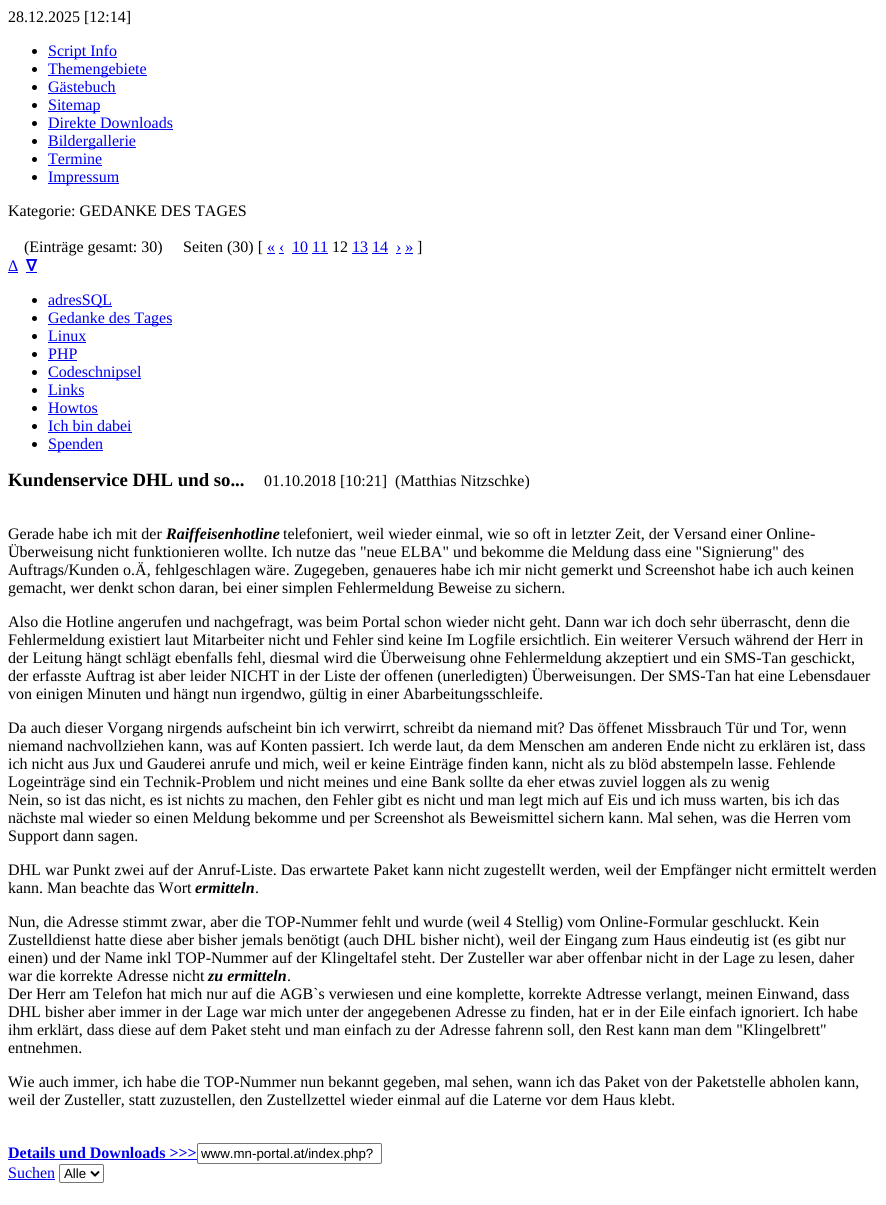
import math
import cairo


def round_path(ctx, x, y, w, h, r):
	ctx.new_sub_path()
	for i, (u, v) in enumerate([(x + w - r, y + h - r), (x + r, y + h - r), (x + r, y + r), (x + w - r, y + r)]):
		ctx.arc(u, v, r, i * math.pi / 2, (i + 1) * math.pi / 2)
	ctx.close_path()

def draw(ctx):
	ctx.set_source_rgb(1, 1, 1)
	ctx.paint()
	ctx.select_font_face('Liberation Serif')
	ctx.set_font_size(16)
	ctx.set_source_rgb(0, 0, 0)
	ctx.move_to(8, 22)
	ctx.show_text('28.12.2025 [12:14]')
	ctx.new_path()
	ctx.arc(34.5, 51.5, 2.5, 0, 2 * math.pi)
	ctx.fill()
	ctx.set_source_rgb(0, 0, 0.933)
	ctx.rectangle(48, 57, 69, 1)
	ctx.fill()
	ctx.move_to(48, 56)
	ctx.show_text('Script Info')
	ctx.set_source_rgb(0, 0, 0)
	ctx.new_path()
	ctx.arc(34.5, 69.5, 2.5, 0, 2 * math.pi)
	ctx.fill()
	ctx.set_source_rgb(0, 0, 0.933)
	ctx.rectangle(48, 75, 99, 1)
	ctx.fill()
	ctx.move_to(48, 74)
	ctx.show_text('Themengebiete')
	ctx.set_source_rgb(0, 0, 0)
	ctx.new_path()
	ctx.arc(34.5, 87.5, 2.5, 0, 2 * math.pi)
	ctx.fill()
	ctx.set_source_rgb(0, 0, 0.933)
	ctx.move_to(48, 92)
	ctx.show_text('Gästebuch')
	ctx.rectangle(48, 93, 68, 1)
	ctx.fill()
	ctx.set_source_rgb(0, 0, 0)
	ctx.arc(34.5, 105.5, 2.5, 0, 2 * math.pi)
	ctx.fill()
	ctx.set_source_rgb(0, 0, 0.933)
	ctx.rectangle(48, 111, 52, 1)
	ctx.fill()
	ctx.move_to(48, 110)
	ctx.show_text('Sitemap')
	ctx.set_source_rgb(0, 0, 0)
	ctx.new_path()
	ctx.arc(34.5, 123.5, 2.5, 0, 2 * math.pi)
	ctx.fill()
	ctx.set_source_rgb(0, 0, 0.933)
	ctx.move_to(48, 128)
	ctx.show_text('Direkte Downloads')
	ctx.rectangle(48, 129, 125, 1)
	ctx.fill()
	ctx.set_source_rgb(0, 0, 0)
	ctx.arc(34.5, 141.5, 2.5, 0, 2 * math.pi)
	ctx.fill()
	ctx.set_source_rgb(0, 0, 0.933)
	ctx.rectangle(48, 147, 88, 1)
	ctx.fill()
	ctx.move_to(48, 146)
	ctx.show_text('Bildergallerie')
	ctx.set_source_rgb(0, 0, 0)
	ctx.new_path()
	ctx.arc(34.5, 159.5, 2.5, 0, 2 * math.pi)
	ctx.fill()
	ctx.set_source_rgb(0, 0, 0.933)
	ctx.move_to(48, 164)
	ctx.show_text('Termine')
	ctx.rectangle(48, 165, 54, 1)
	ctx.fill()
	ctx.set_source_rgb(0, 0, 0)
	ctx.arc(34.5, 177.5, 2.5, 0, 2 * math.pi)
	ctx.fill()
	ctx.set_source_rgb(0, 0, 0.933)
	ctx.rectangle(48, 183, 71, 1)
	ctx.fill()
	ctx.move_to(48, 182)
	ctx.show_text('Impressum')
	ctx.set_source_rgb(0, 0, 0)
	for x, y, s in [
		(8, 216, 'Kategorie: GEDANKE DES TAGES'),
		(24, 252, '(Einträge gesamt: 30)'),
		(183, 252, 'Seiten (30) ['),
	]:
		ctx.move_to(x, y)
		ctx.show_text(s)
	ctx.set_source_rgb(0, 0, 0.933)
	ctx.move_to(267, 252)
	ctx.show_text('« ‹')
	ctx.rectangle(267, 253, 8, 1)
	ctx.fill()
	ctx.rectangle(279, 253, 5, 1)
	ctx.fill()
	ctx.move_to(292, 252)
	ctx.show_text('10 11')
	ctx.rectangle(292, 253, 16, 1)
	ctx.fill()
	ctx.rectangle(312, 253, 16, 1)
	ctx.fill()
	ctx.set_source_rgb(0, 0, 0)
	ctx.move_to(332, 252)
	ctx.show_text('12')
	ctx.set_source_rgb(0, 0, 0.933)
	ctx.move_to(352, 252)
	ctx.show_text('13 14')
	ctx.rectangle(352, 253, 16, 1)
	ctx.fill()
	ctx.rectangle(372, 253, 16, 1)
	ctx.fill()
	ctx.move_to(396, 252)
	ctx.show_text('› »')
	ctx.rectangle(396, 253, 5, 1)
	ctx.fill()
	ctx.rectangle(405, 253, 8, 1)
	ctx.fill()
	ctx.set_source_rgb(0, 0, 0)
	ctx.move_to(417, 252)
	ctx.show_text(']')
	ctx.set_source_rgb(0, 0, 0.933)
	ctx.move_to(8, 271)
	ctx.show_text('Δ')
	ctx.rectangle(8, 272, 10, 1)
	ctx.fill()
	ctx.select_font_face('DejaVu Sans', cairo.FONT_SLANT_NORMAL, cairo.FONT_WEIGHT_BOLD)
	ctx.move_to(26, 271)
	ctx.show_text('∇')
	ctx.rectangle(26, 272, 11, 1)
	ctx.fill()
	ctx.set_source_rgb(0, 0, 0)
	ctx.arc(34.5, 300.5, 2.5, 0, 2 * math.pi)
	ctx.fill()
	ctx.set_source_rgb(0, 0, 0.933)
	ctx.rectangle(48, 306, 64, 1)
	ctx.fill()
	ctx.select_font_face('Liberation Serif')
	ctx.move_to(48, 305)
	ctx.show_text('adresSQL')
	ctx.set_source_rgb(0, 0, 0)
	ctx.new_path()
	ctx.arc(34.5, 318.5, 2.5, 0, 2 * math.pi)
	ctx.fill()
	ctx.set_source_rgb(0, 0, 0.933)
	ctx.rectangle(48, 324, 124, 1)
	ctx.fill()
	ctx.move_to(48, 323)
	ctx.show_text('Gedanke des Tages')
	ctx.set_source_rgb(0, 0, 0)
	ctx.new_path()
	ctx.arc(34.5, 336.5, 2.5, 0, 2 * math.pi)
	ctx.fill()
	ctx.set_source_rgb(0, 0, 0.933)
	ctx.move_to(48, 341)
	ctx.show_text('Linux')
	ctx.rectangle(48, 342, 38, 1)
	ctx.fill()
	ctx.set_source_rgb(0, 0, 0)
	ctx.arc(34.5, 354.5, 2.5, 0, 2 * math.pi)
	ctx.fill()
	ctx.set_source_rgb(0, 0, 0.933)
	ctx.move_to(48, 359)
	ctx.show_text('PHP')
	ctx.rectangle(48, 360, 29, 1)
	ctx.fill()
	ctx.set_source_rgb(0, 0, 0)
	ctx.arc(34.5, 372.5, 2.5, 0, 2 * math.pi)
	ctx.fill()
	ctx.set_source_rgb(0, 0, 0.933)
	ctx.rectangle(48, 378, 93, 1)
	ctx.fill()
	ctx.move_to(48, 377)
	ctx.show_text('Codeschnipsel')
	ctx.set_source_rgb(0, 0, 0)
	ctx.new_path()
	ctx.arc(34.5, 390.5, 2.5, 0, 2 * math.pi)
	ctx.fill()
	ctx.set_source_rgb(0, 0, 0.933)
	ctx.move_to(48, 395)
	ctx.show_text('Links')
	ctx.rectangle(48, 396, 36, 1)
	ctx.fill()
	ctx.set_source_rgb(0, 0, 0)
	ctx.arc(34.5, 408.5, 2.5, 0, 2 * math.pi)
	ctx.fill()
	ctx.set_source_rgb(0, 0, 0.933)
	ctx.move_to(48, 413)
	ctx.show_text('Howtos')
	ctx.rectangle(48, 414, 50, 1)
	ctx.fill()
	ctx.set_source_rgb(0, 0, 0)
	ctx.arc(34.5, 426.5, 2.5, 0, 2 * math.pi)
	ctx.fill()
	ctx.set_source_rgb(0, 0, 0.933)
	ctx.move_to(48, 431)
	ctx.show_text('Ich bin dabei')
	ctx.rectangle(48, 432, 84, 1)
	ctx.fill()
	ctx.set_source_rgb(0, 0, 0)
	ctx.arc(34.5, 444.5, 2.5, 0, 2 * math.pi)
	ctx.fill()
	ctx.set_source_rgb(0, 0, 0.933)
	ctx.rectangle(48, 450, 55, 1)
	ctx.fill()
	ctx.move_to(48, 449)
	ctx.show_text('Spenden')
	ctx.select_font_face('Liberation Serif', cairo.FONT_SLANT_NORMAL, cairo.FONT_WEIGHT_BOLD)
	ctx.set_font_size(18.75)
	ctx.set_source_rgb(0, 0, 0)
	ctx.move_to(8, 486)
	ctx.show_text('Kundenservice DHL und so...')
	ctx.select_font_face('Liberation Serif')
	ctx.set_font_size(16)
	ctx.move_to(264, 486)
	ctx.show_text('01.10.2018 [10:21]  (Matthias Nitzschke)')
	ctx.move_to(8, 539)
	ctx.show_text('Gerade habe ich mit der')
	ctx.select_font_face('Liberation Serif', cairo.FONT_SLANT_ITALIC, cairo.FONT_WEIGHT_BOLD)
	ctx.move_to(166, 539)
	ctx.show_text('Raiffeisenhotline')
	ctx.select_font_face('Liberation Serif')
	for x, y, s in [
		(283, 539, 'telefoniert, weil wieder einmal, wie so oft in letzter Zeit, der Versand einer Online-'),
		(8, 557, 'Überweisung nicht funktionieren wollte. Ich nutze das "neue ELBA" und bekomme die Meldung dass eine "Signierung" des'),
		(8, 575, 'Auftrags/Kunden o.Ä, fehlgeschlagen wäre. Zugegeben, genaueres habe ich mir nicht gemerkt und Screenshot habe ich auch keinen'),
		(8, 593, 'gemacht, wer denkt schon daran, bei einer simplen Fehlermeldung Beweise zu sichern.'),
		(8, 627, 'Also die Hotline angerufen und nachgefragt, was beim Portal schon wieder nicht geht. Dann war ich doch sehr überrascht, denn die'),
		(8, 645, 'Fehlermeldung existiert laut Mitarbeiter nicht und Fehler sind keine Im Logfile ersichtlich. Ein weiterer Versuch während der Herr in'),
		(8, 663, 'der Leitung hängt schlägt ebenfalls fehl, diesmal wird die Überweisung ohne Fehlermeldung akzeptiert und ein SMS-Tan geschickt,'),
		(8, 681, 'der erfasste Auftrag ist aber leider NICHT in der Liste der offenen (unerledigten) Überweisungen. Der SMS-Tan hat eine Lebensdauer'),
		(8, 699, 'von einigen Minuten und hängt nun irgendwo, gültig in einer Abarbeitungsschleife.'),
		(8, 733, 'Da auch dieser Vorgang nirgends aufscheint bin ich verwirrt, schreibt da niemand mit? Das öffenet Missbrauch Tür und Tor, wenn'),
		(8, 751, 'niemand nachvollziehen kann, was auf Konten passiert. Ich werde laut, da dem Menschen am anderen Ende nicht zu erklären ist, dass'),
		(8, 769, 'ich nicht aus Jux und Gauderei anrufe und mich, weil er keine Einträge finden kann, nicht als zu blöd abstempeln lasse. Fehlende'),
		(8, 787, 'Logeinträge sind ein Technik-Problem und nicht meines und eine Bank sollte da eher etwas zuviel loggen als zu wenig'),
		(8, 805, 'Nein, so ist das nicht, es ist nichts zu machen, den Fehler gibt es nicht und man legt mich auf Eis und ich muss warten, bis ich das'),
		(8, 823, 'nächste mal wieder so einen Meldung bekomme und per Screenshot als Beweismittel sichern kann. Mal sehen, was die Herren vom'),
		(8, 841, 'Support dann sagen.'),
		(8, 875, 'DHL war Punkt zwei auf der Anruf-Liste. Das erwartete Paket kann nicht zugestellt werden, weil der Empfänger nicht ermittelt werden'),
		(8, 893, 'kann. Man beachte das Wort'),
	]:
		ctx.move_to(x, y)
		ctx.show_text(s)
	ctx.select_font_face('Liberation Serif', cairo.FONT_SLANT_ITALIC, cairo.FONT_WEIGHT_BOLD)
	ctx.move_to(195, 893)
	ctx.show_text('ermitteln')
	ctx.select_font_face('Liberation Serif')
	for x, y, s in [
		(255, 893, '.'),
		(8, 927, 'Nun, die Adresse stimmt zwar, aber die TOP-Nummer fehlt und wurde (weil 4 Stellig) vom Online-Formular geschluckt. Kein'),
		(8, 945, 'Zustelldienst hatte diese aber bisher jemals benötigt (auch DHL bisher nicht), weil der Eingang zum Haus eindeutig ist (es gibt nur'),
		(8, 963, 'einen) und der Name inkl TOP-Nummer auf der Klingeltafel steht. Der Zusteller war aber offenbar nicht in der Lage zu lesen, daher'),
		(8, 981, 'war die korrekte Adresse nicht'),
	]:
		ctx.move_to(x, y)
		ctx.show_text(s)
	ctx.select_font_face('Liberation Serif', cairo.FONT_SLANT_ITALIC, cairo.FONT_WEIGHT_BOLD)
	ctx.move_to(208, 981)
	ctx.show_text('zu ermitteln')
	ctx.select_font_face('Liberation Serif')
	for x, y, s in [
		(287, 981, '.'),
		(8, 999, 'Der Herr am Telefon hat mich nur auf die AGB`s verwiesen und eine komplette, korrekte Adtresse verlangt, meinen Einwand, dass'),
		(8, 1017, 'DHL bisher aber immer in der Lage war mich unter der angegebenen Adresse zu finden, hat er in der Eile einfach ignoriert. Ich habe'),
		(8, 1035, 'ihm erklärt, dass diese auf dem Paket steht und man einfach zu der Adresse fahrenn soll, den Rest kann man dem "Klingelbrett"'),
		(8, 1053, 'entnehmen.'),
		(8, 1087, 'Wie auch immer, ich habe die TOP-Nummer nun bekannt gegeben, mal sehen, wann ich das Paket von der Paketstelle abholen kann,'),
		(8, 1105, 'weil der Zusteller, statt zuzustellen, den Zustellzettel wieder einmal auf die Laterne vor dem Haus klebt.'),
	]:
		ctx.move_to(x, y)
		ctx.show_text(s)
	ctx.select_font_face('Liberation Serif', cairo.FONT_SLANT_NORMAL, cairo.FONT_WEIGHT_BOLD)
	ctx.set_source_rgb(0, 0, 0.933)
	ctx.move_to(8, 1158)
	ctx.show_text('Details und Downloads >>>')
	ctx.rectangle(8, 1159, 189, 1)
	ctx.fill()
	round_path(ctx, 197.5, 1143.5, 184, 20, 1.5)
	ctx.set_source_rgb(0.463, 0.463, 0.463)
	ctx.set_line_width(1)
	ctx.stroke()
	ctx.select_font_face('Liberation Sans')
	ctx.set_font_size(13.3)
	ctx.set_source_rgb(0, 0, 0)
	ctx.move_to(201, 1158)
	ctx.show_text('www.mn-portal.at/index.php?')
	ctx.select_font_face('Liberation Serif')
	ctx.set_font_size(16)
	ctx.set_source_rgb(0, 0, 0.933)
	ctx.move_to(8, 1178)
	ctx.show_text('Suchen')
	ctx.rectangle(8, 1179, 47, 1)
	ctx.fill()
	round_path(ctx, 59.5, 1164.5, 44, 18, 1.5)
	ctx.set_source_rgb(0.463, 0.463, 0.463)
	ctx.stroke()
	ctx.new_path()
	ctx.move_to(91, 1171.5)
	ctx.line_to(95, 1175.5)
	ctx.line_to(99, 1171.5)
	ctx.set_source_rgb(0, 0, 0)
	ctx.set_line_width(2)
	ctx.stroke()
	ctx.select_font_face('Liberation Sans')
	ctx.set_font_size(13.3)
	ctx.move_to(64, 1178)
	ctx.show_text('Alle')


surface = cairo.ImageSurface(cairo.FORMAT_RGB24, 886, 1205)
ctx = cairo.Context(surface)
options = cairo.FontOptions()
options.set_hint_metrics(cairo.HINT_METRICS_OFF)
options.set_hint_style(cairo.HINT_STYLE_NONE)
ctx.set_font_options(options)
ctx.set_miter_limit(4)
draw(ctx)
surface.write_to_png('image.png')
